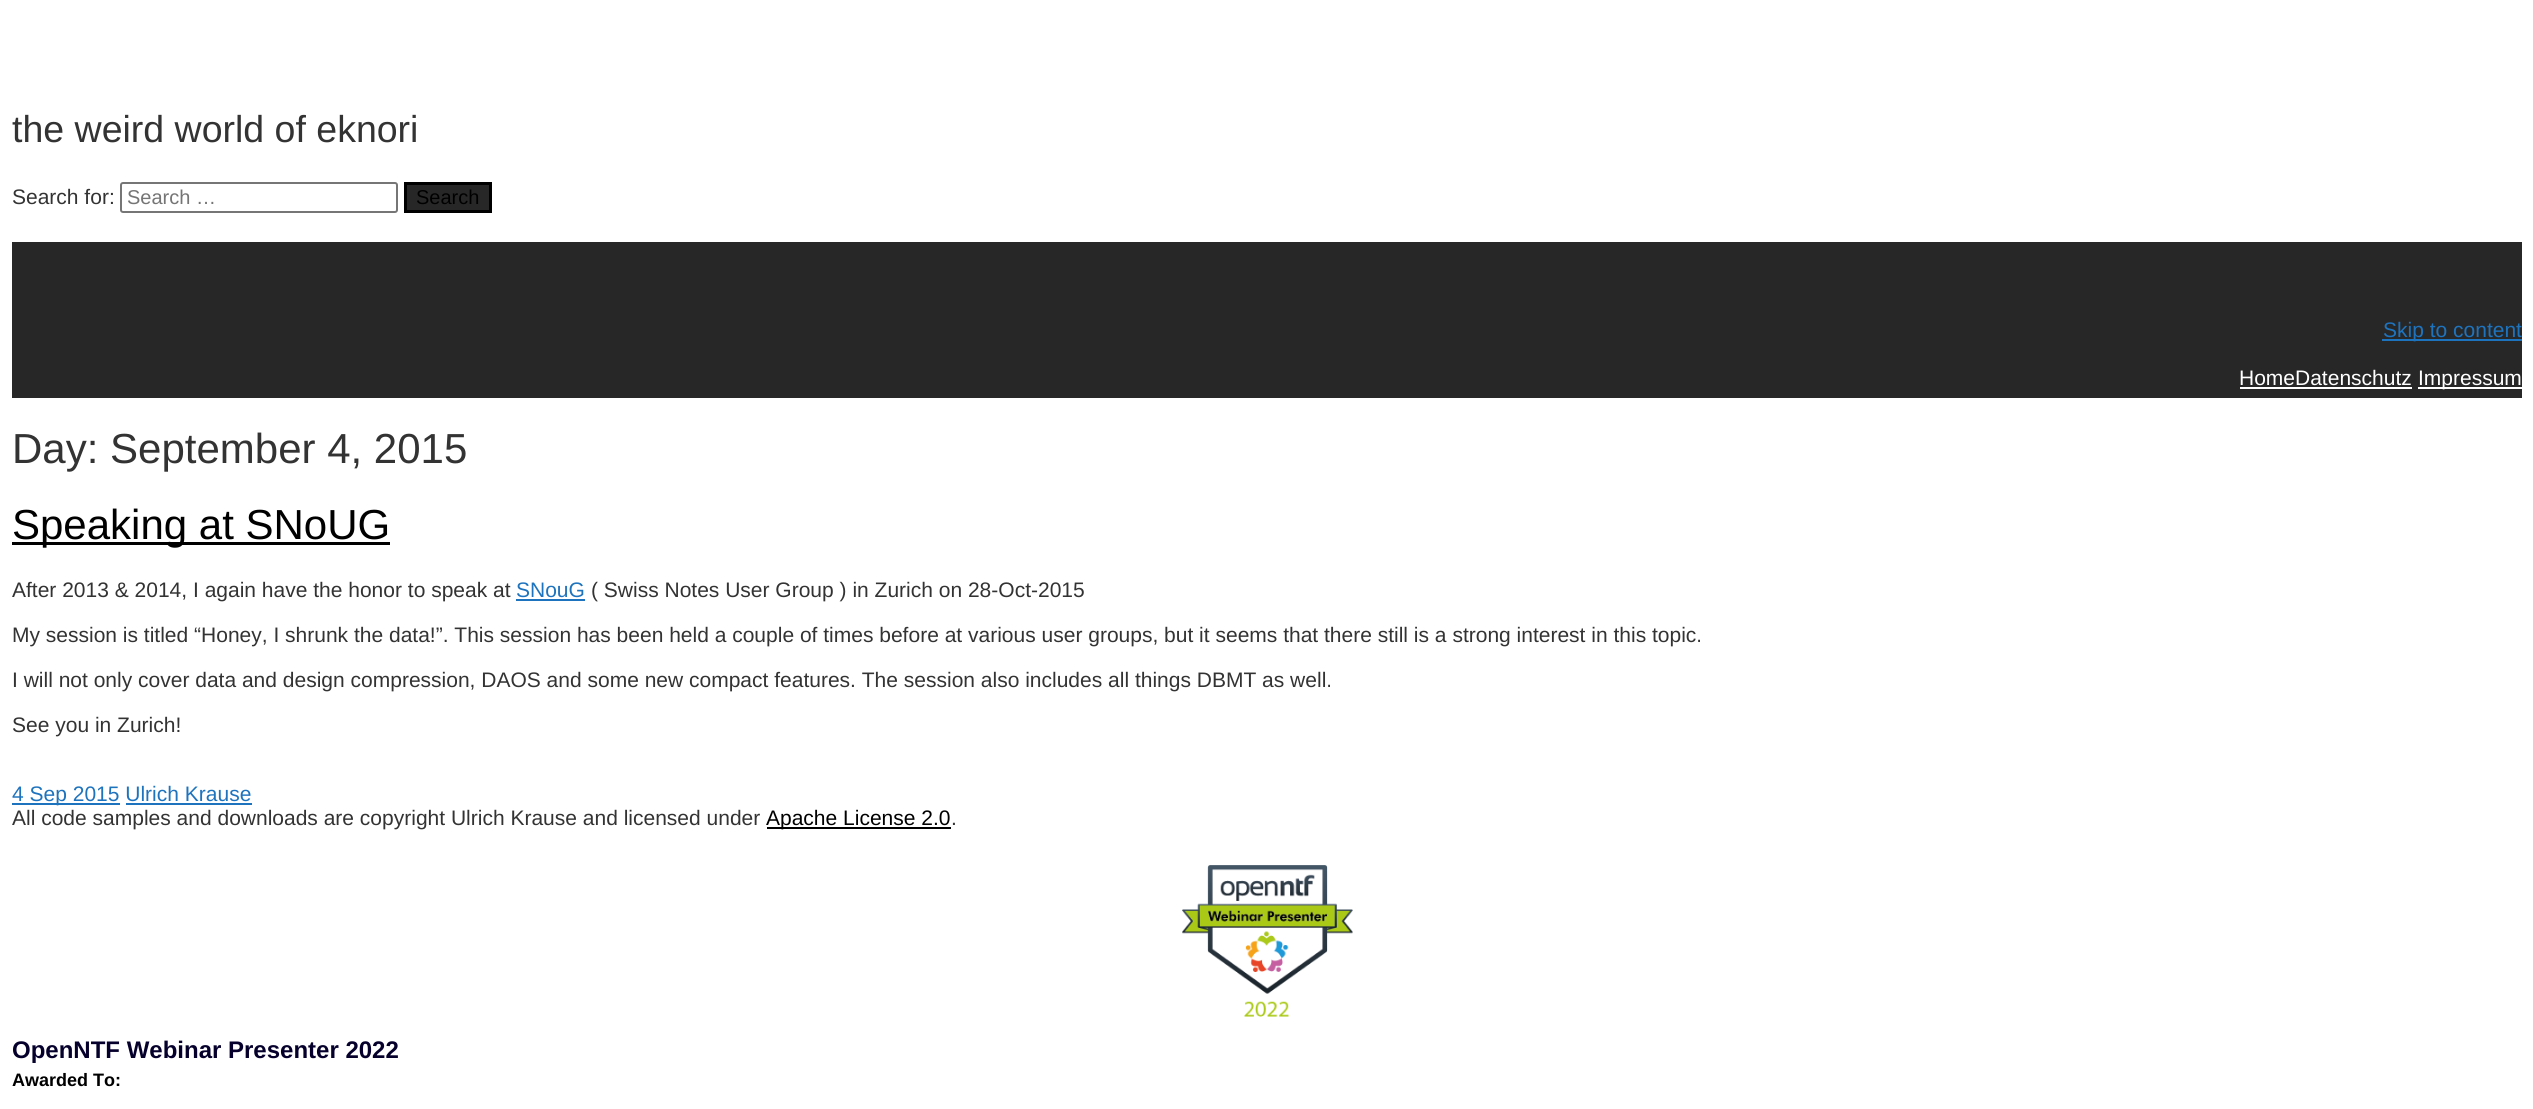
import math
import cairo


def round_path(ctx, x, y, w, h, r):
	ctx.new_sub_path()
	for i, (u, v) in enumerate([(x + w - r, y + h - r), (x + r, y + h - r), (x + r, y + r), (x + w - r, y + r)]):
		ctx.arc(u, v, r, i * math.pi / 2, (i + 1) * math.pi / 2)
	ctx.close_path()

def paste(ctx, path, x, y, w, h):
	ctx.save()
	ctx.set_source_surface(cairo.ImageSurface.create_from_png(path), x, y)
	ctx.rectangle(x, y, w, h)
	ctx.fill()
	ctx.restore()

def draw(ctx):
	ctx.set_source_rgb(1, 1, 1)
	ctx.paint()
	ctx.select_font_face('Liberation Sans')
	ctx.set_font_size(37.5)
	ctx.set_source_rgb(0.2, 0.2, 0.2)
	ctx.move_to(12, 142)
	ctx.show_text('the weird world of eknori')
	ctx.set_font_size(21)
	ctx.move_to(12, 204)
	ctx.show_text('Search for:')
	round_path(ctx, 121, 183, 276, 29, 2)
	ctx.set_source_rgb(0.463, 0.463, 0.463)
	ctx.stroke()
	ctx.set_font_size(20)
	ctx.set_source_rgb(0.459, 0.459, 0.459)
	ctx.move_to(127, 204)
	ctx.show_text('Search …')
	ctx.set_source_rgb(0.153, 0.153, 0.153)
	ctx.rectangle(405.5, 183.5, 85, 28)
	ctx.fill_preserve()
	ctx.set_source_rgb(0, 0, 0)
	ctx.set_line_width(3)
	ctx.stroke()
	ctx.move_to(416, 204)
	ctx.show_text('Search')
	ctx.set_source_rgb(0.153, 0.153, 0.153)
	ctx.rectangle(12, 242, 2510, 156)
	ctx.fill()
	ctx.set_source_rgb(0.118, 0.451, 0.745)
	ctx.rectangle(2382, 339, 140, 2)
	ctx.fill()
	ctx.set_font_size(21)
	ctx.move_to(2383, 337)
	ctx.show_text('Skip to content')
	ctx.set_source_rgb(1, 1, 1)
	ctx.move_to(2239, 385)
	ctx.show_text('HomeDatenschutz')
	ctx.rectangle(2240, 387, 172, 2)
	ctx.fill()
	ctx.rectangle(2418, 387, 104, 2)
	ctx.fill()
	ctx.move_to(2418, 385)
	ctx.show_text('Impressum')
	ctx.set_font_size(42)
	ctx.set_source_rgb(0.2, 0.2, 0.2)
	ctx.move_to(12, 463)
	ctx.show_text('Day: September 4, 2015')
	ctx.set_source_rgb(0, 0, 0)
	ctx.rectangle(12, 542, 378, 3)
	ctx.fill()
	ctx.move_to(12, 539)
	ctx.show_text('Speaking at SNoUG')
	ctx.set_font_size(21)
	ctx.set_source_rgb(0.2, 0.2, 0.2)
	ctx.move_to(12, 597)
	ctx.show_text('After 2013 & 2014, I again have the honor to speak at')
	ctx.set_source_rgb(0.118, 0.451, 0.745)
	ctx.move_to(516, 597)
	ctx.show_text('SNouG')
	ctx.rectangle(516, 599, 69, 2)
	ctx.fill()
	ctx.set_source_rgb(0.2, 0.2, 0.2)
	for x, y, s in [
		(591, 597, '( Swiss Notes User Group ) in Zurich on 28-Oct-2015'),
		(12, 642, 'My session is titled “Honey, I shrunk the data!”. This session has been held a couple of times before at various user groups, but it seems that there still is a strong interest in this topic.'),
		(12, 687, 'I will not only cover data and design compression, DAOS and some new compact features. The session also includes all things DBMT as well.'),
		(12, 732, 'See you in Zurich!'),
	]:
		ctx.move_to(x, y)
		ctx.show_text(s)
	ctx.set_source_rgb(0.118, 0.451, 0.745)
	ctx.rectangle(12, 803, 108, 2)
	ctx.fill()
	ctx.move_to(12, 801)
	ctx.show_text('4 Sep 2015 Ulrich Krause')
	ctx.rectangle(126, 803, 126, 2)
	ctx.fill()
	ctx.set_source_rgb(0.2, 0.2, 0.2)
	ctx.move_to(12, 825)
	ctx.show_text('All code samples and downloads are copyright Ulrich Krause and licensed under')
	ctx.set_source_rgb(0, 0, 0)
	ctx.rectangle(767, 827, 184, 2)
	ctx.fill()
	ctx.move_to(766, 825)
	ctx.show_text('Apache License 2.0')
	ctx.set_source_rgb(0.2, 0.2, 0.2)
	ctx.move_to(951, 825)
	ctx.show_text('.')
	paste(ctx, 'media/1.png', 1182, 865, 171, 152)
	ctx.select_font_face('Liberation Sans', cairo.FONT_SLANT_NORMAL, cairo.FONT_WEIGHT_BOLD)
	ctx.set_font_size(24)
	ctx.set_source_rgb(0.02, 0.004, 0.173)
	ctx.move_to(12, 1058)
	ctx.show_text('OpenNTF Webinar Presenter 2022')
	ctx.set_font_size(18)
	ctx.set_source_rgb(0, 0, 0)
	ctx.move_to(12, 1086)
	ctx.show_text('Awarded To:')


surface = cairo.ImageSurface(cairo.FORMAT_RGB24, 2533, 1109)
ctx = cairo.Context(surface)
options = cairo.FontOptions()
options.set_hint_metrics(cairo.HINT_METRICS_OFF)
options.set_hint_style(cairo.HINT_STYLE_NONE)
ctx.set_font_options(options)
ctx.set_miter_limit(4)
draw(ctx)
surface.write_to_png('image.png')
